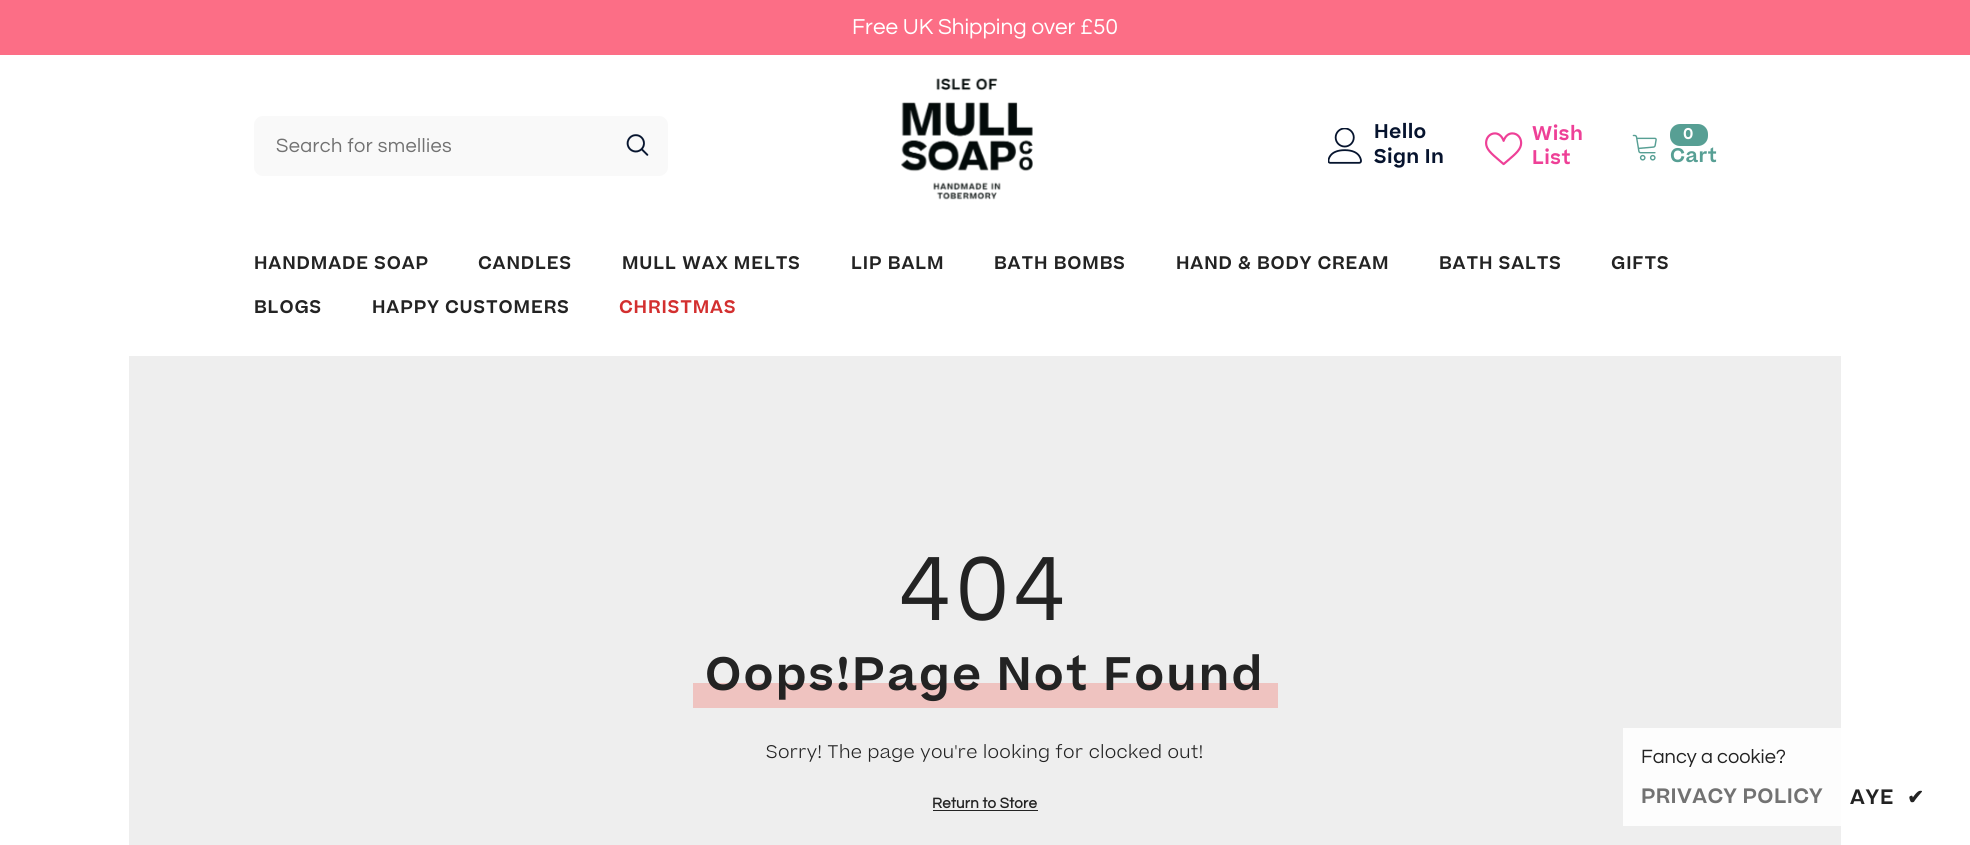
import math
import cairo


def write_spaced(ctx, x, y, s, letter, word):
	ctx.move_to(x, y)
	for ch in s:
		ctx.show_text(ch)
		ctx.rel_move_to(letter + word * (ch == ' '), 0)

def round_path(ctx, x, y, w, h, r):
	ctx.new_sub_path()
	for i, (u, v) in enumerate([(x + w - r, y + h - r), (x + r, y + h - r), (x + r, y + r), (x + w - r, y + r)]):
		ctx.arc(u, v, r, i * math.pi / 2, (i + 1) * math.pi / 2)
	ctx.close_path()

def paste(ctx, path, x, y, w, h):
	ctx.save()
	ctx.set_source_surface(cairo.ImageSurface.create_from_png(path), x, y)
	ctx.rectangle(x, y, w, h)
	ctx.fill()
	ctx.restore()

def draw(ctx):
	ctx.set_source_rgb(1, 1, 1)
	ctx.paint()
	ctx.set_source_rgb(0.988, 0.431, 0.525)
	ctx.rectangle(0, 0, 1970, 55)
	ctx.fill()
	ctx.select_font_face('Questrial')
	ctx.set_font_size(22.5)
	ctx.set_source_rgb(1, 1, 1)
	ctx.move_to(852, 34)
	ctx.show_text('Free UK Shipping over £50')
	ctx.set_source_rgb(0.973, 0.973, 0.973)
	round_path(ctx, 254, 116, 414, 60, 9)
	ctx.fill()
	ctx.set_font_size(20)
	ctx.set_source_rgb(0.447, 0.447, 0.447)
	write_spaced(ctx, 276, 152, 'Search for smellies', 0.4, 0)
	paste(ctx, 'media/1.png', 626, 134, 23, 22)
	paste(ctx, 'media/2.png', 901, 78, 132, 122)
	paste(ctx, 'media/3.png', 1328, 128, 34, 36)
	ctx.select_font_face('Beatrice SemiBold')
	ctx.set_font_size(19)
	ctx.set_source_rgb(0.024, 0.078, 0.18)
	write_spaced(ctx, 1374, 138, 'Hello', 0.4, 0)
	write_spaced(ctx, 1374, 163, 'Sign In', 0.4, 0)
	paste(ctx, 'media/4.png', 1485, 132, 38, 34)
	ctx.set_source_rgb(0.933, 0.251, 0.592)
	write_spaced(ctx, 1532, 140, 'Wish', 0.5, 0)
	write_spaced(ctx, 1532, 164, 'List', 0.5, 0)
	paste(ctx, 'media/5.png', 1632, 134, 25, 27)
	ctx.set_source_rgb(0.341, 0.624, 0.58)
	round_path(ctx, 1670, 124, 38, 22, 10)
	ctx.fill()
	ctx.set_font_size(15)
	ctx.set_source_rgb(1, 1, 1)
	ctx.move_to(1683, 139)
	ctx.show_text('0')
	ctx.set_font_size(19)
	ctx.set_source_rgb(0.341, 0.624, 0.58)
	write_spaced(ctx, 1670, 162, 'Cart', 0.5, 0)
	ctx.set_font_size(17.5)
	ctx.set_source_rgb(0.137, 0.137, 0.137)
	for x, y, s in [
		(254, 269, 'HANDMADE SOAP'),
		(478, 269, 'CANDLES'),
		(622, 269, 'MULL WAX MELTS'),
		(851, 269, 'LIP BALM'),
		(994, 269, 'BATH BOMBS'),
		(1176, 269, 'HAND & BODY CREAM'),
		(1439, 269, 'BATH SALTS'),
		(1611, 269, 'GIFTS'),
		(254, 313, 'BLOGS'),
		(372, 313, 'HAPPY CUSTOMERS'),
	]:
		write_spaced(ctx, x, y, s, 0.9, 0)
	ctx.set_source_rgb(0.827, 0.184, 0.184)
	write_spaced(ctx, 619, 313, 'CHRISTMAS', 0.9, 0)
	ctx.set_source_rgb(0.933, 0.933, 0.933)
	ctx.rectangle(129, 356, 1712, 489)
	ctx.fill()
	ctx.set_source_rgb(0.992, 0.992, 0.992)
	ctx.rectangle(1623, 728, 218, 98)
	ctx.fill()
	ctx.select_font_face('Questrial')
	ctx.set_font_size(95)
	ctx.set_source_rgb(0.137, 0.137, 0.137)
	write_spaced(ctx, 899, 620, '404', 5, 0)
	ctx.set_source_rgb(0.937, 0.765, 0.753)
	ctx.rectangle(693, 683, 585, 25)
	ctx.fill()
	ctx.select_font_face('Beatrice SemiBold')
	ctx.set_font_size(45)
	ctx.set_source_rgb(0.137, 0.137, 0.137)
	write_spaced(ctx, 705, 690, 'Oops!Page Not Found', 2.25, 0)
	ctx.select_font_face('Beatrice Light')
	ctx.set_font_size(17.5)
	write_spaced(ctx, 766, 758, 'Sorry! The page you\'re looking for clocked out!', 0.4, 0)
	ctx.select_font_face('Questrial', cairo.FONT_SLANT_NORMAL, cairo.FONT_WEIGHT_BOLD)
	ctx.set_font_size(15)
	write_spaced(ctx, 932, 808, 'Return to Store', 0.25, 0)
	ctx.rectangle(933, 810, 105, 1)
	ctx.fill()
	ctx.select_font_face('Questrial')
	ctx.set_font_size(20)
	ctx.move_to(1641, 763)
	ctx.show_text('Fancy a cookie?')
	ctx.select_font_face('Beatrice SemiBold')
	ctx.set_source_rgb(0.447, 0.447, 0.447)
	write_spaced(ctx, 1641, 803, 'PRIVACY POLICY', 0.4, 0)
	ctx.set_source_rgb(0.137, 0.137, 0.137)
	write_spaced(ctx, 1850, 804, 'AYE', 1, 0)
	ctx.select_font_face('DejaVu Sans', cairo.FONT_SLANT_NORMAL, cairo.FONT_WEIGHT_BOLD)
	write_spaced(ctx, 1907, 804, '✔', 1, 0)


surface = cairo.ImageSurface(cairo.FORMAT_RGB24, 1970, 845)
ctx = cairo.Context(surface)
options = cairo.FontOptions()
options.set_hint_metrics(cairo.HINT_METRICS_OFF)
options.set_hint_style(cairo.HINT_STYLE_NONE)
ctx.set_font_options(options)
ctx.set_miter_limit(4)
draw(ctx)
surface.write_to_png('image.png')
